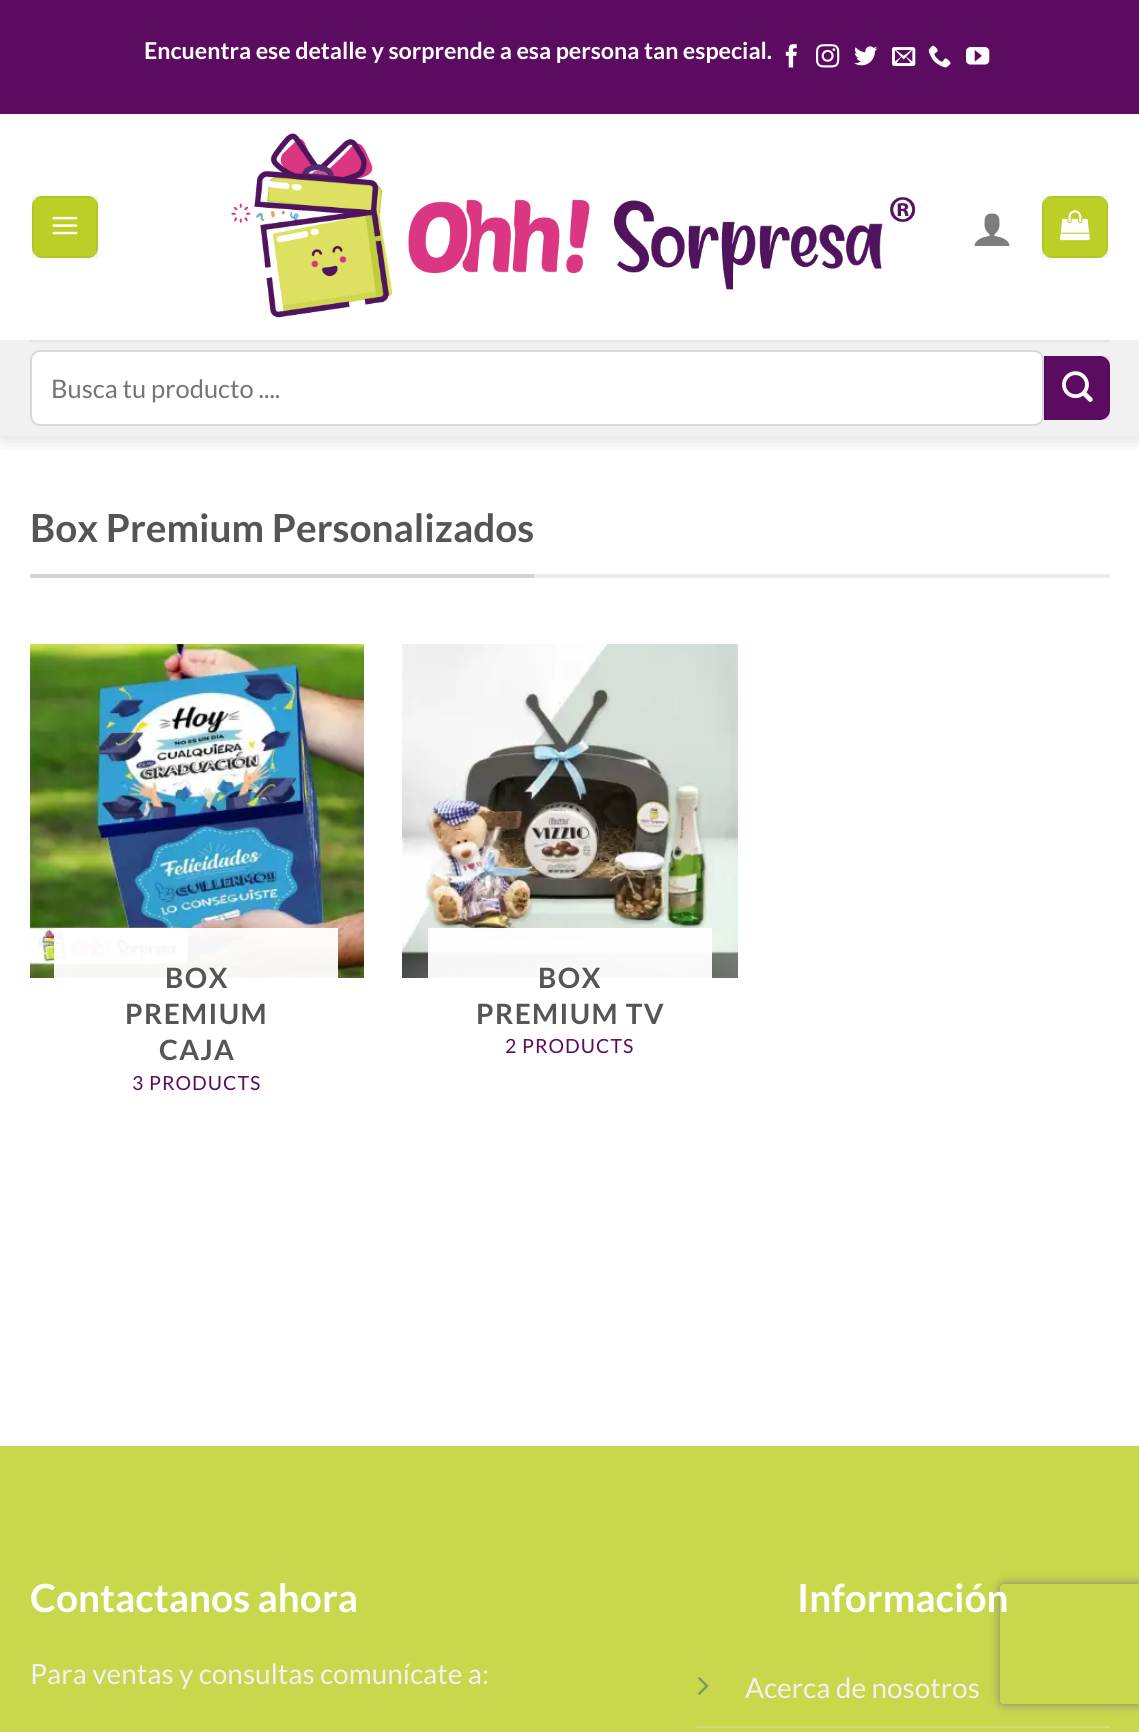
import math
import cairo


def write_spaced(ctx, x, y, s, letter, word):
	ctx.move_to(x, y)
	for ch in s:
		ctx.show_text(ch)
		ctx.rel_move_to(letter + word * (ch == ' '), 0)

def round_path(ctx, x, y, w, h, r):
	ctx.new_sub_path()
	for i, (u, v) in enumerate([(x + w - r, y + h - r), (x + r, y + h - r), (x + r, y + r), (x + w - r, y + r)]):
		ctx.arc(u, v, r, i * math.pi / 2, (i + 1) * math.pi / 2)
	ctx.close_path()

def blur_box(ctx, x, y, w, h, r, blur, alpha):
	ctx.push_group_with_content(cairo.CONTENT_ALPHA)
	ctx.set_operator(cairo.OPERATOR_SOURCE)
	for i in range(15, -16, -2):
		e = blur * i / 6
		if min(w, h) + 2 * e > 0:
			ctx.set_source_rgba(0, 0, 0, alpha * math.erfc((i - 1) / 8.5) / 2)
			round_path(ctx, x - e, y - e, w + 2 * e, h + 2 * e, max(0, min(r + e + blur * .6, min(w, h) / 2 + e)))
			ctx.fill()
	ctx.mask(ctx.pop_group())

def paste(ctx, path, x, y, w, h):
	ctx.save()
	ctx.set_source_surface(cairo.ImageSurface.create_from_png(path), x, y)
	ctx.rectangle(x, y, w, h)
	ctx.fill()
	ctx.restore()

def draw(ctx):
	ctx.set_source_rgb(1, 1, 1)
	ctx.paint()
	ctx.save()
	ctx.rectangle(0, 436, 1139, 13)
	ctx.clip()
	ctx.set_source_rgb(0, 0, 0)
	blur_box(ctx, 2, 2, 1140, 436, 0, 10, 0.15)
	ctx.restore()
	ctx.set_source_rgb(0.361, 0.047, 0.376)
	ctx.rectangle(0, 0, 1139, 114)
	ctx.fill()
	ctx.select_font_face('Lato', cairo.FONT_SLANT_NORMAL, cairo.FONT_WEIGHT_BOLD)
	ctx.set_font_size(23.25)
	ctx.set_source_rgb(1, 1, 1)
	ctx.move_to(144, 59)
	ctx.show_text('Encuentra ese detalle y sorprende a esa persona tan especial.')
	paste(ctx, 'media/1.png', 785, 44, 12, 24)
	paste(ctx, 'media/2.png', 816, 44, 24, 24)
	paste(ctx, 'media/3.png', 854, 46, 24, 20)
	paste(ctx, 'media/4.png', 892, 47, 24, 19)
	paste(ctx, 'media/5.png', 928, 45, 23, 23)
	paste(ctx, 'media/6.png', 966, 47, 24, 18)
	ctx.set_source_rgb(0.737, 0.812, 0.149)
	round_path(ctx, 32, 196, 66, 62, 10)
	ctx.fill()
	ctx.rectangle(33, 197, 64, 60)
	ctx.set_source_rgba(0, 0, 0, 0.05)
	ctx.stroke()
	paste(ctx, 'media/7.png', 52, 216, 26, 19)
	paste(ctx, 'media/8.png', 231, 133, 685, 185)
	paste(ctx, 'media/9.png', 974, 213, 36, 33)
	ctx.set_source_rgb(0.737, 0.812, 0.149)
	round_path(ctx, 1042, 196, 66, 62, 10)
	ctx.fill()
	ctx.rectangle(1043, 197, 64, 60)
	ctx.set_source_rgba(0, 0, 0, 0.05)
	ctx.stroke()
	paste(ctx, 'media/10.png', 1060, 210, 30, 31)
	ctx.set_source_rgb(0.945, 0.945, 0.945)
	ctx.rectangle(0, 340, 1139, 96)
	ctx.fill()
	ctx.set_source_rgb(0.898, 0.898, 0.898)
	ctx.rectangle(30, 340, 1080, 2)
	ctx.fill()
	ctx.set_source_rgb(1, 1, 1)
	round_path(ctx, 31, 351, 1012, 74, 9)
	ctx.fill_preserve()
	ctx.set_source_rgb(0.847, 0.847, 0.847)
	ctx.stroke()
	ctx.select_font_face('Lato')
	ctx.set_font_size(25.5)
	ctx.set_source_rgb(0.459, 0.459, 0.459)
	ctx.move_to(51, 398)
	ctx.show_text('Busca tu producto ....')
	ctx.set_source_rgb(0.361, 0.047, 0.376)
	ctx.new_path()
	ctx.move_to(1044, 356)
	ctx.line_to(1100, 356)
	ctx.curve_to(1105.5, 356, 1110, 360.5, 1110, 366)
	ctx.line_to(1110, 410)
	ctx.curve_to(1110, 415.5, 1105.5, 420, 1100, 420)
	ctx.line_to(1044, 420)
	ctx.close_path()
	ctx.fill()
	ctx.rectangle(1045, 357, 64, 62)
	ctx.set_source_rgba(0, 0, 0, 0.05)
	ctx.stroke()
	paste(ctx, 'media/11.png', 1062, 371, 31, 31)
	ctx.set_source_rgb(0.925, 0.925, 0.925)
	ctx.rectangle(534, 574, 576, 4)
	ctx.fill()
	ctx.set_source_rgb(0.831, 0.831, 0.831)
	ctx.rectangle(30, 574, 504, 4)
	ctx.fill()
	ctx.select_font_face('Lato', cairo.FONT_SLANT_NORMAL, cairo.FONT_WEIGHT_BOLD)
	ctx.set_font_size(38.75)
	ctx.set_source_rgb(0.333, 0.333, 0.333)
	ctx.move_to(30, 542)
	ctx.show_text('Box Premium Personalizados')
	paste(ctx, 'media/12.png', 30, 644, 334, 334)
	ctx.set_source_rgba(1, 1, 1, 0.95)
	ctx.rectangle(54, 928, 284, 50)
	ctx.fill()
	ctx.set_font_size(28)
	ctx.set_source_rgb(0.333, 0.333, 0.333)
	for x, y, s in [
		(165, 988, 'BOX'),
		(125, 1024, 'PREMIUM'),
		(159, 1060, 'CAJA'),
	]:
		write_spaced(ctx, x, y, s, 1.4, 0)
	ctx.select_font_face('Lato')
	ctx.set_font_size(19.5)
	ctx.set_source_rgb(0.361, 0.047, 0.376)
	write_spaced(ctx, 132, 1090, '3 PRODUCTS', 1, 0)
	paste(ctx, 'media/13.png', 402, 644, 336, 334)
	ctx.set_source_rgba(1, 1, 1, 0.95)
	ctx.rectangle(428, 928, 284, 50)
	ctx.fill()
	ctx.select_font_face('Lato', cairo.FONT_SLANT_NORMAL, cairo.FONT_WEIGHT_BOLD)
	ctx.set_font_size(28)
	ctx.set_source_rgb(0.333, 0.333, 0.333)
	write_spaced(ctx, 538, 988, 'BOX', 1.4, 0)
	write_spaced(ctx, 476, 1024, 'PREMIUM TV', 1.4, 0)
	ctx.select_font_face('Lato')
	ctx.set_font_size(19.5)
	ctx.set_source_rgb(0.361, 0.047, 0.376)
	write_spaced(ctx, 505, 1053, '2 PRODUCTS', 1, 0)
	ctx.set_source_rgb(0.784, 0.843, 0.294)
	ctx.rectangle(0, 1446, 1139, 286)
	ctx.fill()
	ctx.select_font_face('Lato', cairo.FONT_SLANT_NORMAL, cairo.FONT_WEIGHT_BOLD)
	ctx.set_font_size(38.75)
	ctx.set_source_rgb(1, 1, 1)
	ctx.move_to(30, 1612)
	ctx.show_text('Contactanos ahora')
	ctx.select_font_face('Lato')
	ctx.set_font_size(28)
	ctx.set_source_rgb(0.945, 0.945, 0.945)
	ctx.move_to(30, 1684)
	ctx.show_text('Para ventas y consultas comunícate a:')
	ctx.save()
	ctx.set_fill_rule(cairo.FILL_RULE_EVEN_ODD)
	ctx.new_path()
	ctx.move_to(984, 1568)
	ctx.line_to(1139, 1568)
	ctx.line_to(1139, 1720)
	ctx.line_to(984, 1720)
	ctx.close_path()
	ctx.move_to(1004, 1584)
	ctx.line_to(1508, 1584)
	ctx.curve_to(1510, 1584, 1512, 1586, 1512, 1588)
	ctx.line_to(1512, 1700)
	ctx.curve_to(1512, 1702, 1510, 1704, 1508, 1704)
	ctx.line_to(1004, 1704)
	ctx.curve_to(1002, 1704, 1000, 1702, 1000, 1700)
	ctx.line_to(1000, 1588)
	ctx.curve_to(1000, 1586, 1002, 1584, 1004, 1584)
	ctx.close_path()
	ctx.clip()
	ctx.set_source_rgb(0.502, 0.502, 0.502)
	blur_box(ctx, 1000, 1584, 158, 120, 4, 5, 1)
	ctx.restore()
	ctx.select_font_face('Lato', cairo.FONT_SLANT_NORMAL, cairo.FONT_WEIGHT_BOLD)
	ctx.set_font_size(38.75)
	ctx.set_source_rgb(1, 1, 1)
	ctx.move_to(797, 1612)
	ctx.show_text('Información')
	ctx.set_source_rgb(0.827, 0.875, 0.435)
	ctx.rectangle(696, 1726, 414, 2)
	ctx.fill()
	paste(ctx, 'media/14.png', 698, 1677, 11, 18)
	ctx.select_font_face('Lato')
	ctx.set_font_size(28)
	ctx.set_source_rgb(0.945, 0.945, 0.945)
	ctx.move_to(745, 1698)
	ctx.show_text('Acerca de nosotros')


surface = cairo.ImageSurface(cairo.FORMAT_RGB24, 1139, 1732)
ctx = cairo.Context(surface)
options = cairo.FontOptions()
options.set_hint_metrics(cairo.HINT_METRICS_OFF)
options.set_hint_style(cairo.HINT_STYLE_NONE)
ctx.set_font_options(options)
ctx.set_miter_limit(4)
draw(ctx)
surface.write_to_png('image.png')
